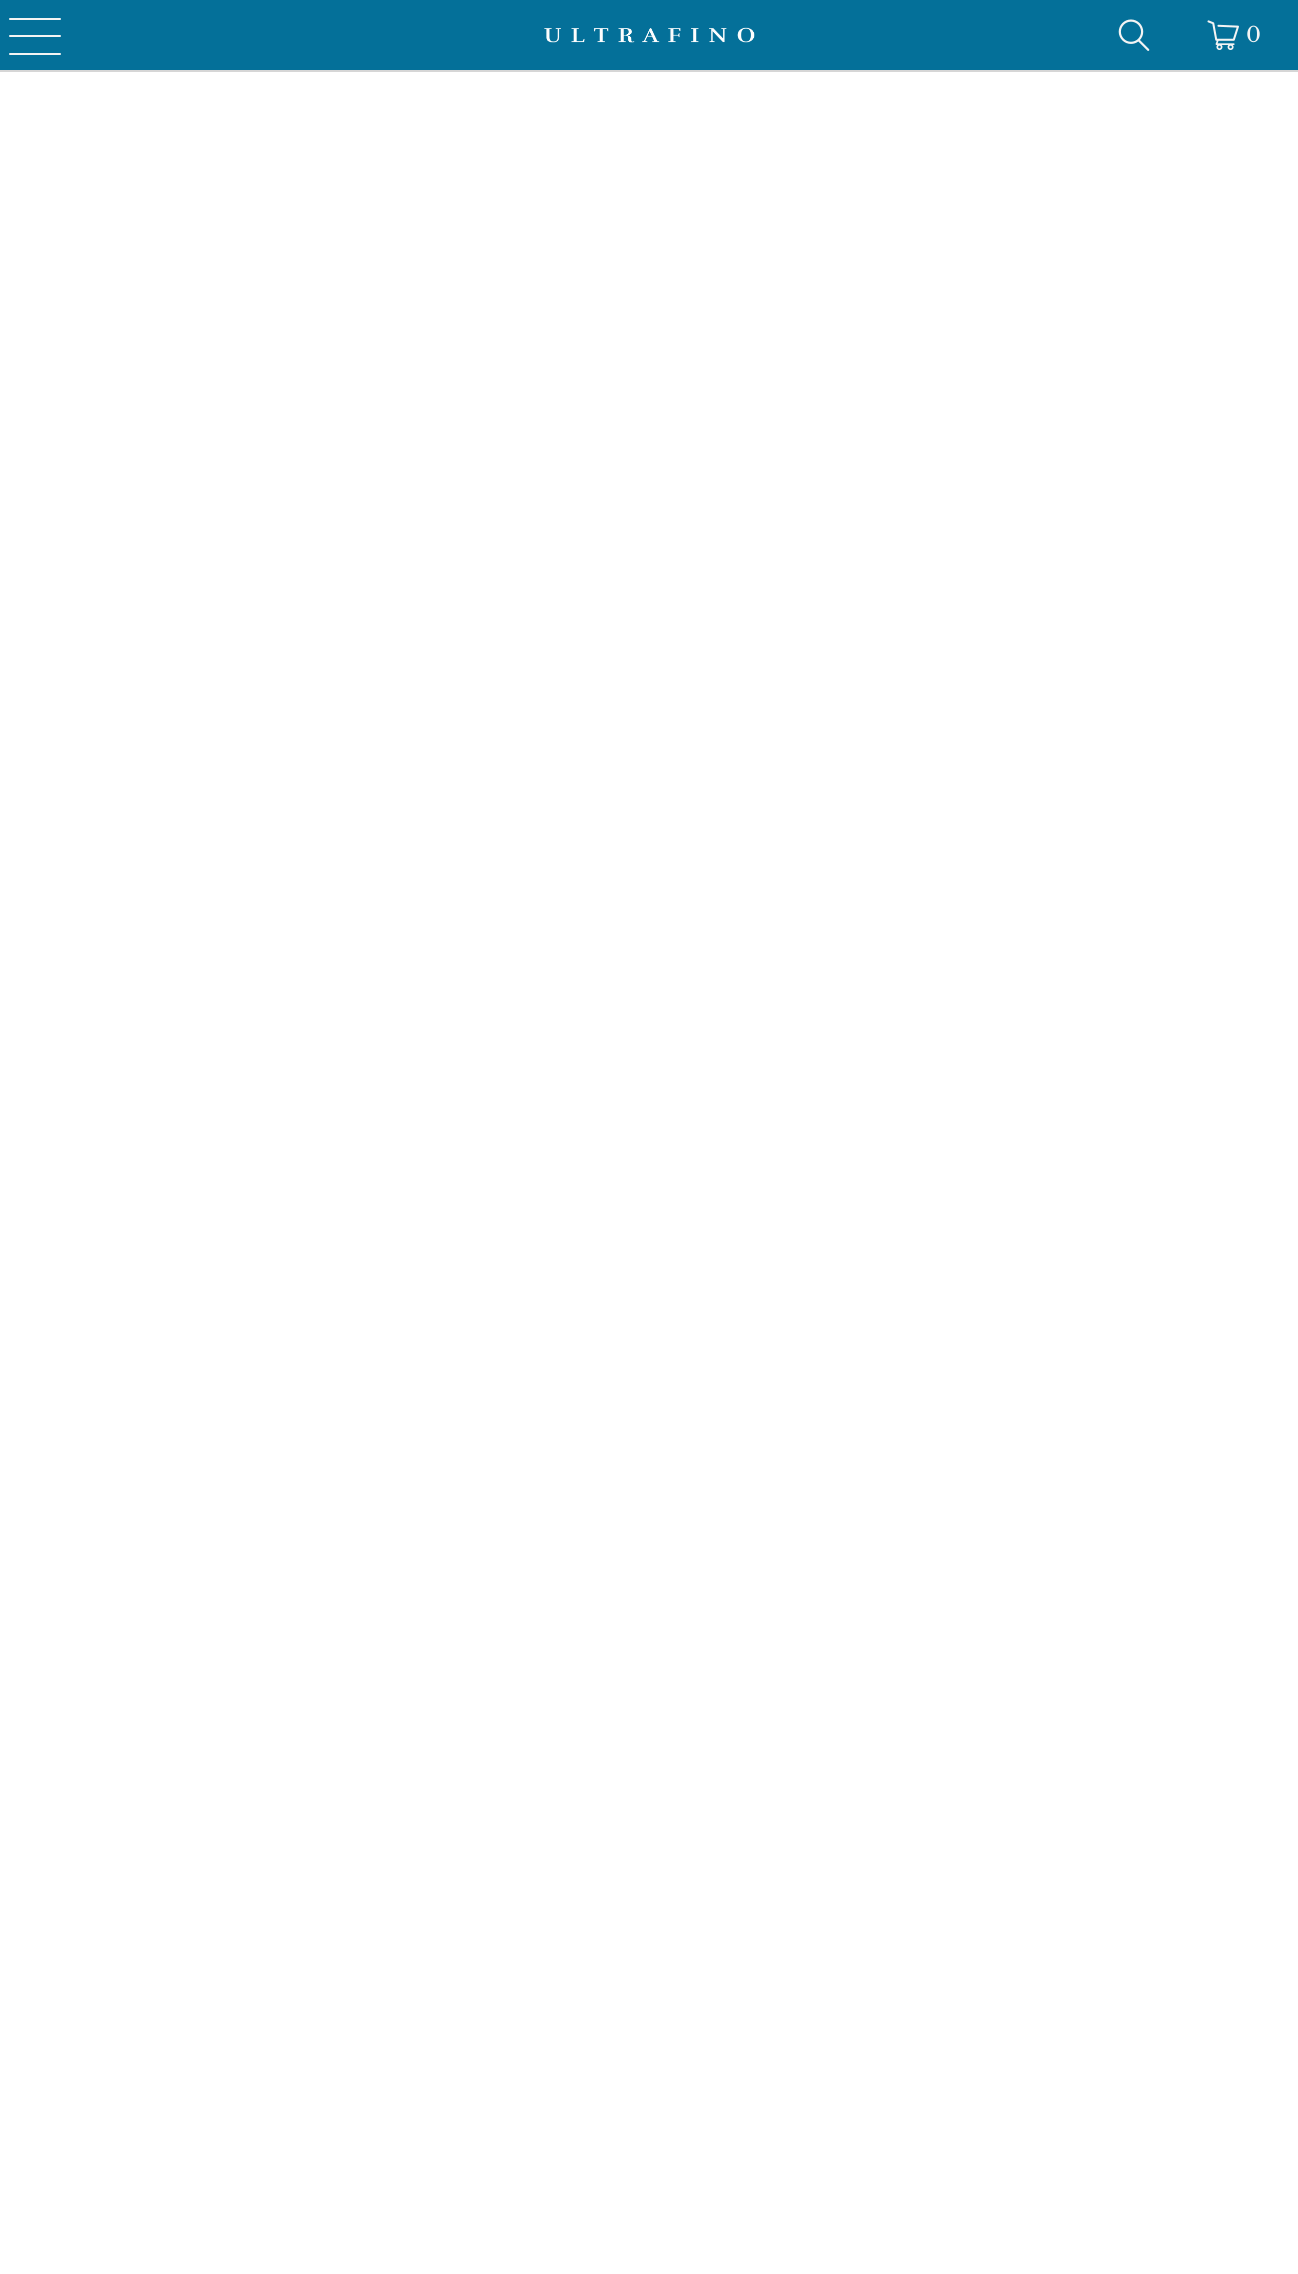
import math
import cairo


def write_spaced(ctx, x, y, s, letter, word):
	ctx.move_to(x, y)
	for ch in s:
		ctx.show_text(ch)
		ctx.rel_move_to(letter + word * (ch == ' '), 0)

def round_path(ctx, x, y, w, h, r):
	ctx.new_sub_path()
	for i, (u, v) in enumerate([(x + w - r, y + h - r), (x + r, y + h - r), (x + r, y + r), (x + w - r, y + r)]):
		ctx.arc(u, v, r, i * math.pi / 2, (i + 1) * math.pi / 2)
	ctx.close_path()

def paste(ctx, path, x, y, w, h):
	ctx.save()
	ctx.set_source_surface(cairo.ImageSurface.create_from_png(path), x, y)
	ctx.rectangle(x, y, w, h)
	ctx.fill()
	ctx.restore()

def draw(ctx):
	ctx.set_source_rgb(1, 1, 1)
	ctx.paint()
	ctx.set_source_rgb(0.016, 0.439, 0.6)
	ctx.rectangle(0, 0, 1298, 70)
	ctx.fill()
	ctx.set_source_rgb(0.957, 0.957, 0.957)
	round_path(ctx, 9, 18, 52, 2, 1)
	ctx.fill()
	round_path(ctx, 9, 35, 52, 2, 1)
	ctx.fill()
	round_path(ctx, 9, 53, 52, 2, 1)
	ctx.fill()
	paste(ctx, 'media/1.png', 544, 27, 211, 16)
	paste(ctx, 'media/2.png', 1118, 19, 32, 32)
	paste(ctx, 'media/3.png', 1207, 20, 32, 30)
	ctx.select_font_face('Libre Baskerville')
	ctx.set_font_size(21)
	write_spaced(ctx, 1246, 42, '0', 2, 0)
	ctx.set_source_rgb(0.839, 0.839, 0.839)
	ctx.rectangle(0, 70, 1298, 2)
	ctx.fill()


surface = cairo.ImageSurface(cairo.FORMAT_RGB24, 1298, 2274)
ctx = cairo.Context(surface)
options = cairo.FontOptions()
options.set_hint_metrics(cairo.HINT_METRICS_OFF)
options.set_hint_style(cairo.HINT_STYLE_NONE)
ctx.set_font_options(options)
ctx.set_miter_limit(4)
draw(ctx)
surface.write_to_png('image.png')
